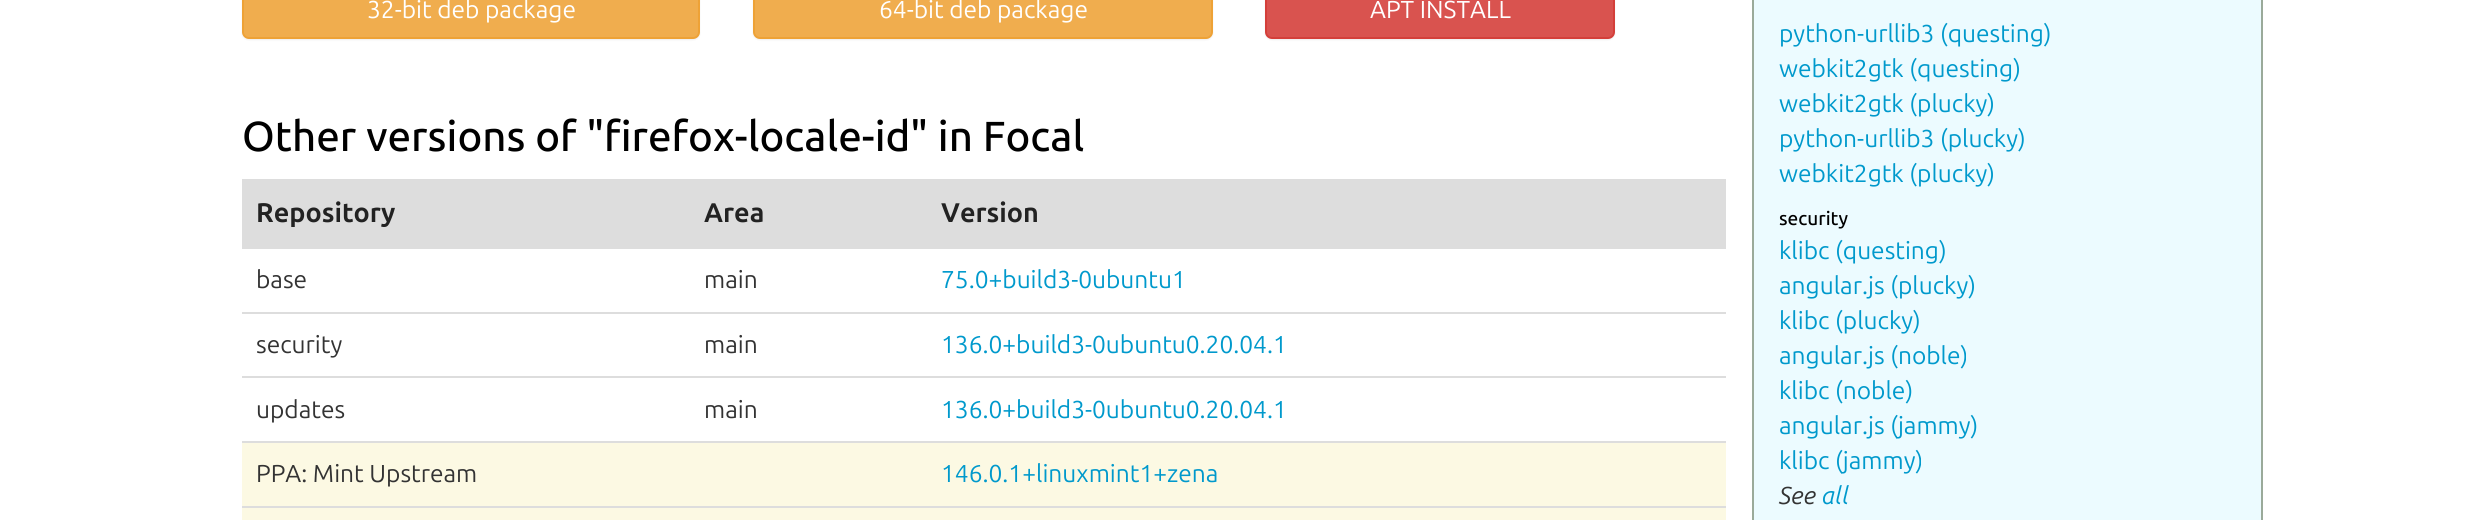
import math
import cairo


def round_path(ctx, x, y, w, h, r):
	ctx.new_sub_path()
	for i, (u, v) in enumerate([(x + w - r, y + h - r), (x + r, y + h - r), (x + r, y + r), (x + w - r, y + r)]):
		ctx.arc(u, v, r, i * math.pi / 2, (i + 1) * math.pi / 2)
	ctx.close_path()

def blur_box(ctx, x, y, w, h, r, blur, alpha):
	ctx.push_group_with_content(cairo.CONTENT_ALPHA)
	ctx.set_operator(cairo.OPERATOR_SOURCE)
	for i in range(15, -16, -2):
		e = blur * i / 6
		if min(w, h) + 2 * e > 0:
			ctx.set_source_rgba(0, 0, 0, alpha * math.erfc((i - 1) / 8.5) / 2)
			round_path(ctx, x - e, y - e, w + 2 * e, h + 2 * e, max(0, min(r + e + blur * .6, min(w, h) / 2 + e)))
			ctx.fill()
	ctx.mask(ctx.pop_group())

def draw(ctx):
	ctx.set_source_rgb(1, 1, 1)
	ctx.paint()
	ctx.set_source_rgb(0, 0, 0)
	blur_box(ctx, 242, -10, 458, 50, 7, 1, 0.07)
	ctx.set_source_rgb(0.941, 0.678, 0.306)
	round_path(ctx, 243, -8, 456, 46, 6)
	ctx.fill_preserve()
	ctx.set_source_rgb(0.933, 0.635, 0.212)
	ctx.stroke()
	ctx.select_font_face('Ubuntu')
	ctx.set_font_size(24.5)
	ctx.set_source_rgb(1, 1, 1)
	ctx.move_to(367, 18)
	ctx.show_text('32-bit deb package')
	ctx.set_source_rgb(0, 0, 0)
	blur_box(ctx, 753, -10, 460, 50, 7, 1, 0.07)
	ctx.set_source_rgb(0.941, 0.678, 0.306)
	round_path(ctx, 754, -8, 458, 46, 6)
	ctx.fill_preserve()
	ctx.set_source_rgb(0.933, 0.635, 0.212)
	ctx.stroke()
	ctx.set_source_rgb(1, 1, 1)
	ctx.move_to(879, 18)
	ctx.show_text('64-bit deb package')
	ctx.set_source_rgb(0, 0, 0)
	blur_box(ctx, 1265, -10, 350, 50, 7, 1, 0.07)
	ctx.set_source_rgb(0.851, 0.325, 0.31)
	round_path(ctx, 1266, -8, 348, 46, 6)
	ctx.fill_preserve()
	ctx.set_source_rgb(0.831, 0.247, 0.227)
	ctx.stroke()
	ctx.set_source_rgb(1, 1, 1)
	ctx.move_to(1370, 18)
	ctx.show_text('APT INSTALL')
	ctx.select_font_face('Ubuntu Medium')
	ctx.set_font_size(42)
	ctx.set_source_rgb(0, 0, 0)
	ctx.move_to(242, 151)
	ctx.show_text('Other versions of "firefox-locale-id" in Focal')
	ctx.set_source_rgb(0.867, 0.867, 0.867)
	ctx.rectangle(242, 179, 1484, 68)
	ctx.fill()
	ctx.select_font_face('Ubuntu', cairo.FONT_SLANT_NORMAL, cairo.FONT_WEIGHT_BOLD)
	ctx.set_font_size(27)
	ctx.set_source_rgb(0.133, 0.133, 0.133)
	for x, y, s in [
		(256, 222, 'Repository'),
		(704, 222, 'Area'),
		(941, 222, 'Version'),
	]:
		ctx.move_to(x, y)
		ctx.show_text(s)
	ctx.select_font_face('Ubuntu')
	ctx.set_font_size(24.5)
	ctx.set_source_rgb(0.2, 0.2, 0.2)
	ctx.move_to(256, 288)
	ctx.show_text('base')
	ctx.move_to(704, 288)
	ctx.show_text('main')
	ctx.set_source_rgb(0.867, 0.867, 0.867)
	ctx.rectangle(242, 247, 1484, 2)
	ctx.fill()
	ctx.set_source_rgb(0, 0.6, 0.8)
	ctx.move_to(941, 288)
	ctx.show_text('75.0+build3-0ubuntu1')
	ctx.set_source_rgb(0.2, 0.2, 0.2)
	ctx.move_to(256, 353)
	ctx.show_text('security')
	ctx.move_to(704, 353)
	ctx.show_text('main')
	ctx.set_source_rgb(0.867, 0.867, 0.867)
	ctx.rectangle(242, 312, 1484, 2)
	ctx.fill()
	ctx.set_source_rgb(0, 0.6, 0.8)
	ctx.move_to(941, 353)
	ctx.show_text('136.0+build3-0ubuntu0.20.04.1')
	ctx.set_source_rgb(0.2, 0.2, 0.2)
	ctx.move_to(256, 418)
	ctx.show_text('updates')
	ctx.move_to(704, 418)
	ctx.show_text('main')
	ctx.set_source_rgb(0.867, 0.867, 0.867)
	ctx.rectangle(242, 376, 1484, 2)
	ctx.fill()
	ctx.set_source_rgb(0, 0.6, 0.8)
	ctx.move_to(941, 418)
	ctx.show_text('136.0+build3-0ubuntu0.20.04.1')
	ctx.set_source_rgb(0.988, 0.973, 0.89)
	ctx.rectangle(242, 443, 1484, 63)
	ctx.fill()
	ctx.set_source_rgb(0.2, 0.2, 0.2)
	ctx.move_to(256, 482)
	ctx.show_text('PPA: Mint Upstream')
	ctx.set_source_rgb(0.867, 0.867, 0.867)
	ctx.rectangle(242, 441, 1484, 2)
	ctx.fill()
	ctx.set_source_rgb(0, 0.6, 0.8)
	ctx.move_to(941, 482)
	ctx.show_text('146.0.1+linuxmint1+zena')
	ctx.set_source_rgb(0.867, 0.867, 0.867)
	ctx.rectangle(242, 506, 1484, 2)
	ctx.fill()
	ctx.set_source_rgb(0.988, 0.973, 0.89)
	ctx.rectangle(242, 508, 1484, 12)
	ctx.fill()
	ctx.set_source_rgb(0.922, 0.984, 1)
	ctx.rectangle(1753, -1, 509, 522)
	ctx.fill_preserve()
	ctx.set_source_rgb(0.604, 0.667, 0.604)
	ctx.stroke()
	ctx.set_source_rgb(0, 0.6, 0.8)
	for x, y, s in [
		(1779, 42, 'python-urllib3 (questing)'),
		(1779, 77, 'webkit2gtk (questing)'),
		(1779, 112, 'webkit2gtk (plucky)'),
		(1779, 147, 'python-urllib3 (plucky)'),
		(1779, 182, 'webkit2gtk (plucky)'),
	]:
		ctx.move_to(x, y)
		ctx.show_text(s)
	ctx.select_font_face('Ubuntu Medium')
	ctx.set_font_size(19)
	ctx.set_source_rgb(0, 0, 0)
	ctx.move_to(1779, 225)
	ctx.show_text('security')
	ctx.select_font_face('Ubuntu')
	ctx.set_font_size(24.5)
	ctx.set_source_rgb(0, 0.6, 0.8)
	for x, y, s in [
		(1779, 259, 'klibc (questing)'),
		(1779, 294, 'angular.js (plucky)'),
		(1779, 329, 'klibc (plucky)'),
		(1779, 364, 'angular.js (noble)'),
		(1779, 399, 'klibc (noble)'),
		(1779, 434, 'angular.js (jammy)'),
		(1779, 469, 'klibc (jammy)'),
	]:
		ctx.move_to(x, y)
		ctx.show_text(s)
	ctx.select_font_face('Ubuntu', cairo.FONT_SLANT_ITALIC)
	ctx.set_source_rgb(0.2, 0.2, 0.2)
	ctx.move_to(1779, 504)
	ctx.show_text('See')
	ctx.set_source_rgb(0, 0.6, 0.8)
	ctx.move_to(1822, 504)
	ctx.show_text('all')


surface = cairo.ImageSurface(cairo.FORMAT_RGB24, 2478, 520)
ctx = cairo.Context(surface)
options = cairo.FontOptions()
options.set_hint_metrics(cairo.HINT_METRICS_OFF)
options.set_hint_style(cairo.HINT_STYLE_NONE)
ctx.set_font_options(options)
ctx.set_miter_limit(4)
draw(ctx)
surface.write_to_png('image.png')
